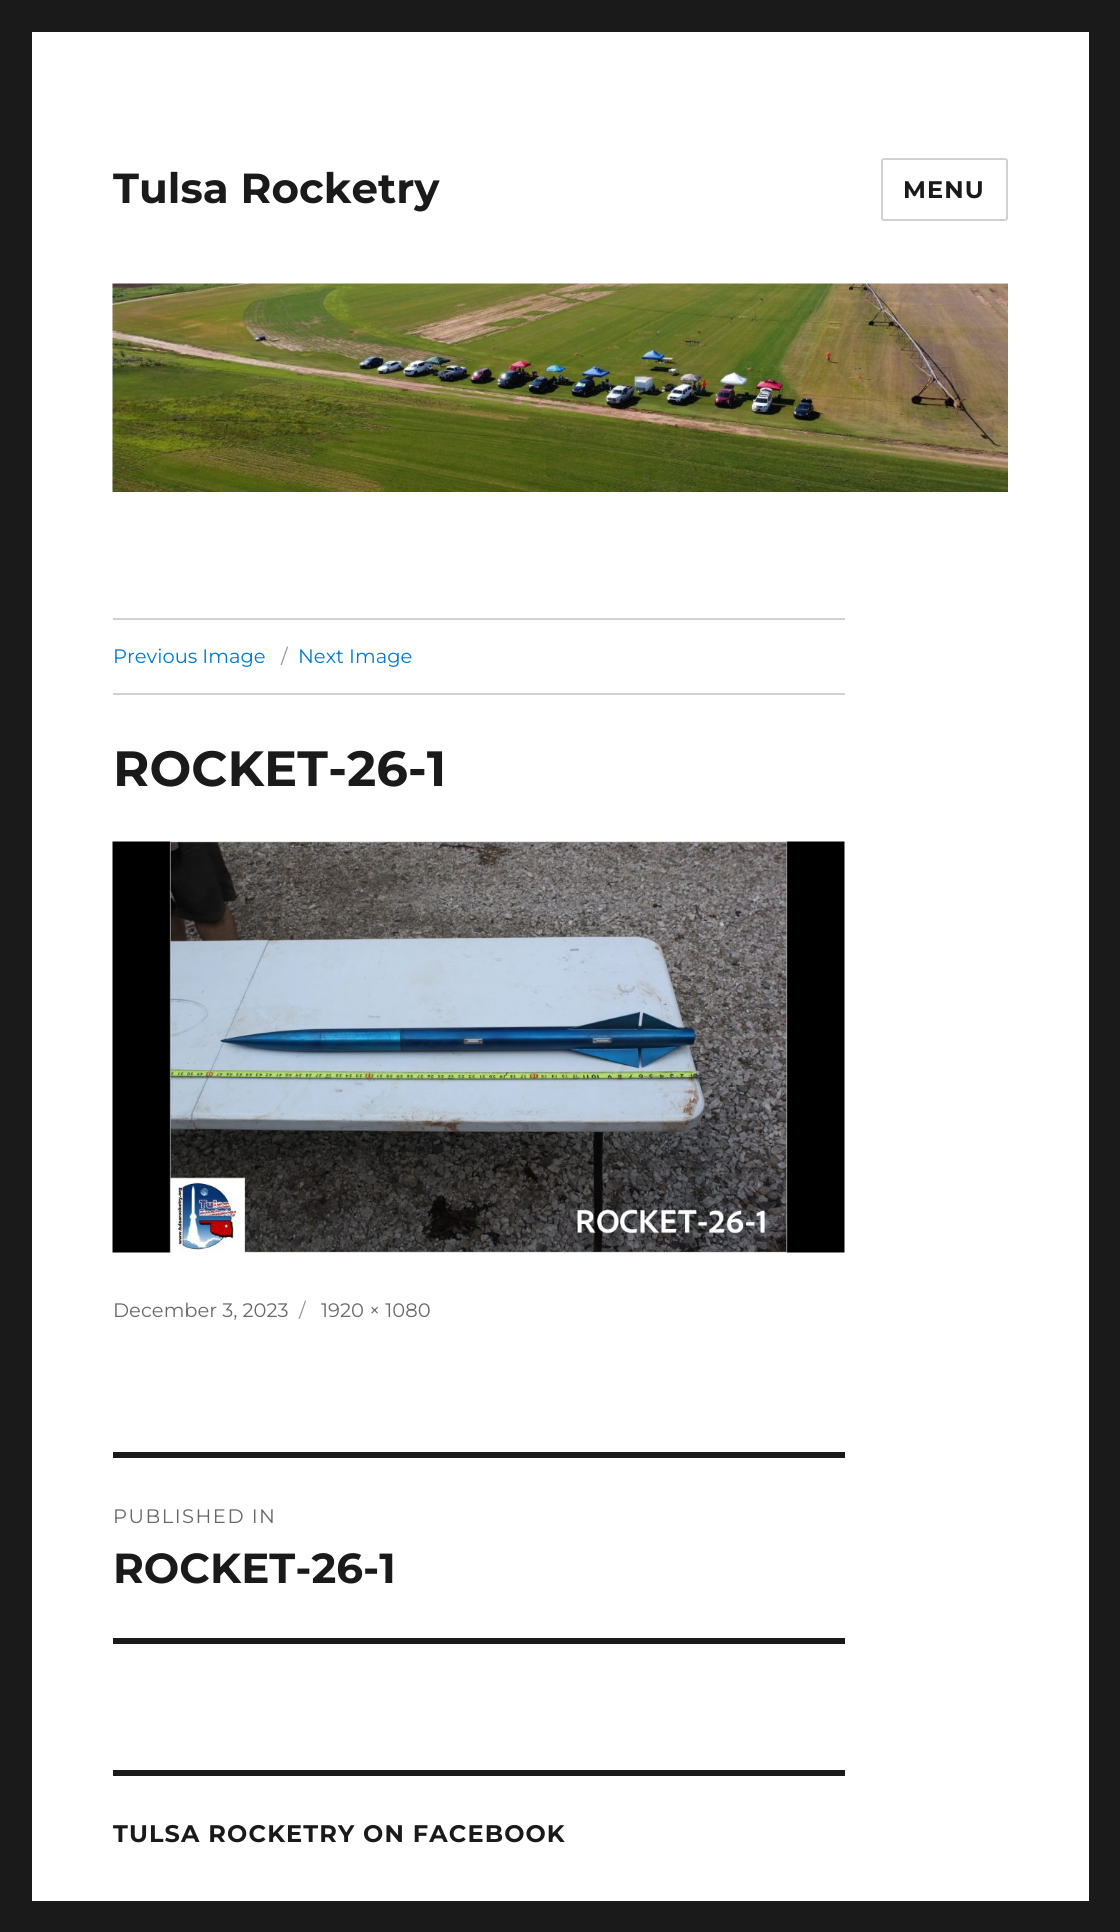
import math
import cairo


def write_spaced(ctx, x, y, s, letter, word):
	ctx.move_to(x, y)
	for ch in s:
		ctx.show_text(ch)
		ctx.rel_move_to(letter + word * (ch == ' '), 0)

def round_path(ctx, x, y, w, h, r):
	ctx.new_sub_path()
	for i, (u, v) in enumerate([(x + w - r, y + h - r), (x + r, y + h - r), (x + r, y + r), (x + w - r, y + r)]):
		ctx.arc(u, v, r, i * math.pi / 2, (i + 1) * math.pi / 2)
	ctx.close_path()

def paste(ctx, path, x, y, w, h):
	ctx.save()
	ctx.set_source_surface(cairo.ImageSurface.create_from_png(path), x, y)
	ctx.rectangle(x, y, w, h)
	ctx.fill()
	ctx.restore()

def draw(ctx):
	ctx.set_source_rgb(0.102, 0.102, 0.102)
	ctx.paint()
	ctx.set_source_rgb(1, 1, 1)
	ctx.rectangle(32, 32, 1057, 1869)
	ctx.fill()
	ctx.select_font_face('Montserrat Thin')
	ctx.set_font_size(42)
	ctx.set_source_rgb(0.102, 0.102, 0.102)
	ctx.move_to(113, 203)
	ctx.show_text('Tulsa Rocketry')
	round_path(ctx, 882, 159, 125, 61, 2)
	ctx.set_source_rgb(0.82, 0.82, 0.82)
	ctx.stroke()
	ctx.set_font_size(24)
	ctx.set_source_rgb(0.102, 0.102, 0.102)
	write_spaced(ctx, 903, 198, 'MENU', 1.1, 0)
	paste(ctx, 'media/1.png', 112, 283, 896, 209)
	ctx.set_source_rgb(0.82, 0.82, 0.82)
	ctx.rectangle(113, 618, 732, 2)
	ctx.fill()
	ctx.rectangle(113, 693, 732, 2)
	ctx.fill()
	ctx.select_font_face('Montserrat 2 Thin')
	ctx.set_font_size(19.5)
	ctx.set_source_rgb(0, 0.478, 0.8)
	ctx.move_to(113, 663)
	ctx.show_text('Previous Image')
	ctx.set_source_rgb(0.584, 0.584, 0.584)
	ctx.move_to(281, 663)
	ctx.show_text('/')
	ctx.set_source_rgb(0, 0.478, 0.8)
	ctx.move_to(298, 663)
	ctx.show_text('Next Image')
	ctx.select_font_face('Montserrat Thin')
	ctx.set_font_size(49.5)
	ctx.set_source_rgb(0.102, 0.102, 0.102)
	ctx.move_to(113, 786)
	ctx.show_text('ROCKET-26-1')
	paste(ctx, 'media/2.png', 112, 841, 733, 412)
	ctx.select_font_face('Montserrat 2 Thin')
	ctx.set_font_size(19.5)
	ctx.set_source_rgb(0.408, 0.408, 0.408)
	ctx.move_to(113, 1317)
	ctx.show_text('December 3, 2023')
	ctx.set_source_rgb(0.584, 0.584, 0.584)
	ctx.move_to(299, 1317)
	ctx.show_text('/')
	ctx.set_source_rgb(0.408, 0.408, 0.408)
	ctx.move_to(321, 1317)
	ctx.show_text('1920 × 1080')
	ctx.set_source_rgb(0.102, 0.102, 0.102)
	ctx.rectangle(113, 1452, 732, 6)
	ctx.fill()
	ctx.rectangle(113, 1638, 732, 6)
	ctx.fill()
	ctx.set_source_rgb(0.408, 0.408, 0.408)
	write_spaced(ctx, 113, 1523, 'PUBLISHED IN', 1.5, 0)
	ctx.select_font_face('Montserrat Thin')
	ctx.set_font_size(42)
	ctx.set_source_rgb(0.102, 0.102, 0.102)
	ctx.move_to(113, 1583)
	ctx.show_text('ROCKET-26-1')
	ctx.rectangle(113, 1770, 732, 6)
	ctx.fill()
	ctx.set_font_size(24)
	write_spaced(ctx, 113, 1842, 'TULSA ROCKETRY ON FACEBOOK', 1.1, 0)


surface = cairo.ImageSurface(cairo.FORMAT_RGB24, 1120, 1932)
ctx = cairo.Context(surface)
options = cairo.FontOptions()
options.set_hint_metrics(cairo.HINT_METRICS_OFF)
options.set_hint_style(cairo.HINT_STYLE_NONE)
ctx.set_font_options(options)
ctx.set_miter_limit(4)
draw(ctx)
surface.write_to_png('image.png')
